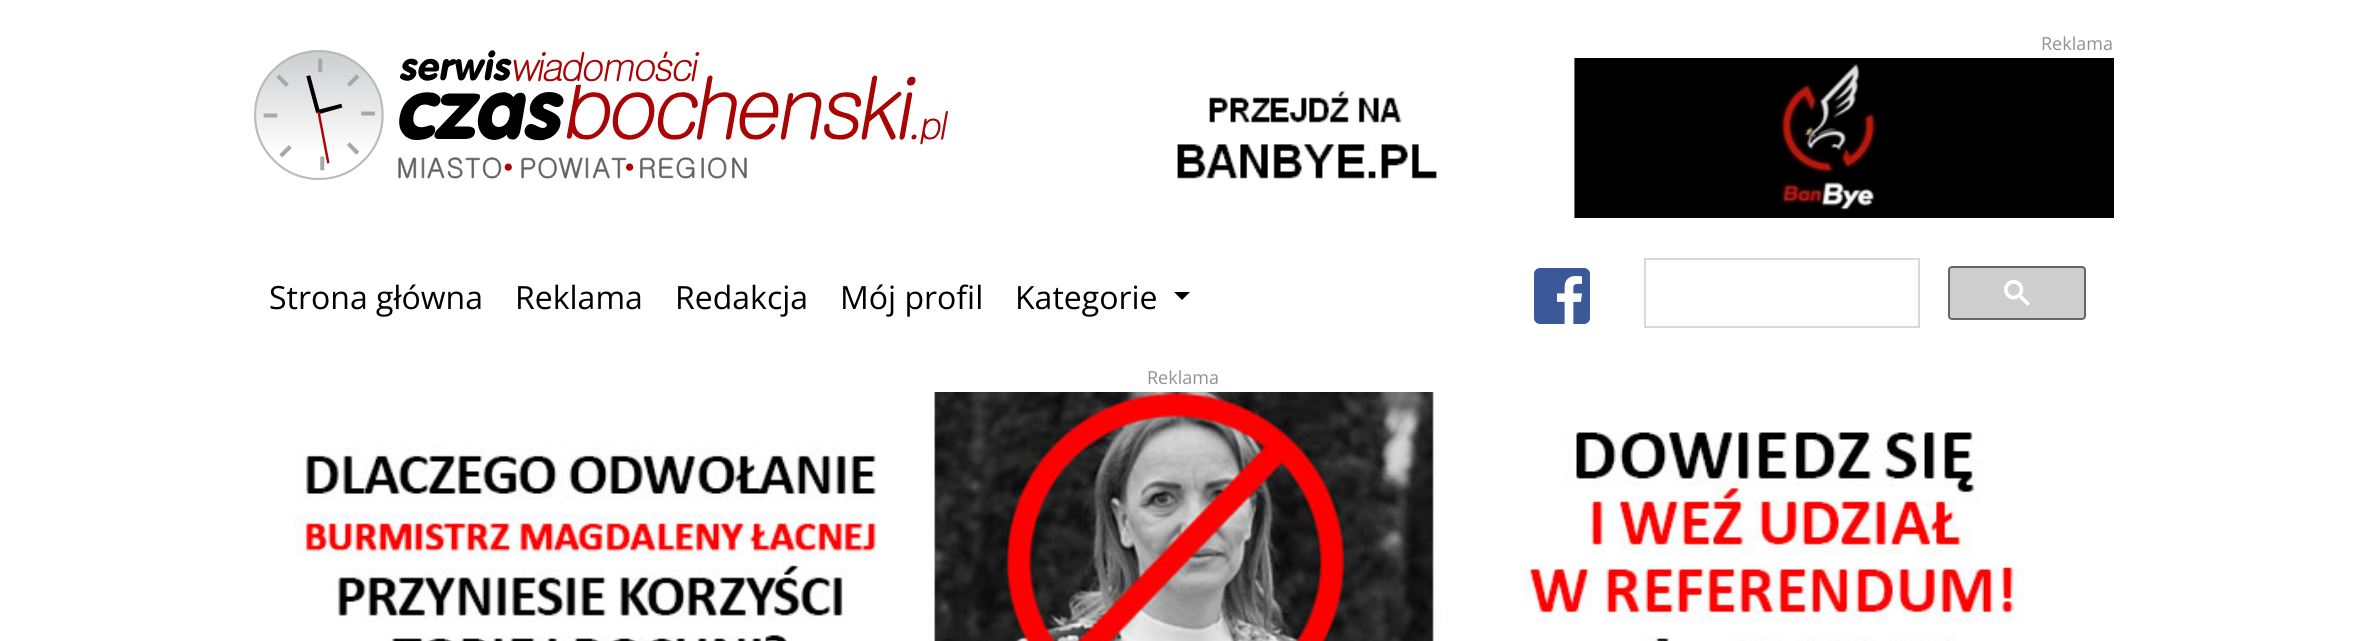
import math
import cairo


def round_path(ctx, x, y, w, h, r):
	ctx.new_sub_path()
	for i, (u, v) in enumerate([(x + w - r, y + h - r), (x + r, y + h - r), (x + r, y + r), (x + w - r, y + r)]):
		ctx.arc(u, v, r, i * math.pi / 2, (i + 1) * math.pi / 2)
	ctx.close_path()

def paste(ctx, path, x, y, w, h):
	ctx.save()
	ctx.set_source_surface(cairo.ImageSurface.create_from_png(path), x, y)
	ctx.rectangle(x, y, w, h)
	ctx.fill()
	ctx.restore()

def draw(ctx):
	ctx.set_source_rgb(1, 1, 1)
	ctx.paint()
	ctx.select_font_face('Open Sans')
	ctx.set_font_size(18)
	ctx.set_source_rgb(0.565, 0.565, 0.565)
	ctx.move_to(2041, 50)
	ctx.show_text('Reklama')
	paste(ctx, 'media/1.png', 1177, 58, 937, 160)
	paste(ctx, 'media/2.png', 254, 50, 694, 130)
	ctx.set_font_size(32)
	ctx.set_source_rgb(0, 0, 0)
	for x, y, s in [
		(269, 309, 'Strona główna'),
		(515, 309, 'Reklama'),
		(675, 309, 'Redakcja'),
		(840, 309, 'Mój profil'),
		(1015, 309, 'Kategorie'),
	]:
		ctx.move_to(x, y)
		ctx.show_text(s)
	ctx.new_path()
	ctx.move_to(1174, 292)
	ctx.line_to(1190, 292)
	ctx.line_to(1182, 300)
	ctx.close_path()
	ctx.fill()
	paste(ctx, 'media/3.png', 1534, 268, 56, 56)
	ctx.rectangle(1645, 259, 274, 68)
	ctx.set_source_rgb(0.851, 0.851, 0.851)
	ctx.stroke()
	ctx.set_source_rgb(0.808, 0.808, 0.808)
	round_path(ctx, 1949, 267, 136, 52, 3)
	ctx.fill_preserve()
	ctx.set_source_rgb(0.4, 0.4, 0.4)
	ctx.stroke()
	paste(ctx, 'media/4.png', 2004, 280, 26, 26)
	ctx.set_font_size(18)
	ctx.set_source_rgb(0.565, 0.565, 0.565)
	ctx.move_to(1147, 384)
	ctx.show_text('Reklama')
	paste(ctx, 'media/5.png', 294, 392, 1730, 249)


surface = cairo.ImageSurface(cairo.FORMAT_RGB24, 2366, 641)
ctx = cairo.Context(surface)
options = cairo.FontOptions()
options.set_hint_metrics(cairo.HINT_METRICS_OFF)
options.set_hint_style(cairo.HINT_STYLE_NONE)
ctx.set_font_options(options)
ctx.set_miter_limit(4)
draw(ctx)
surface.write_to_png('image.png')
